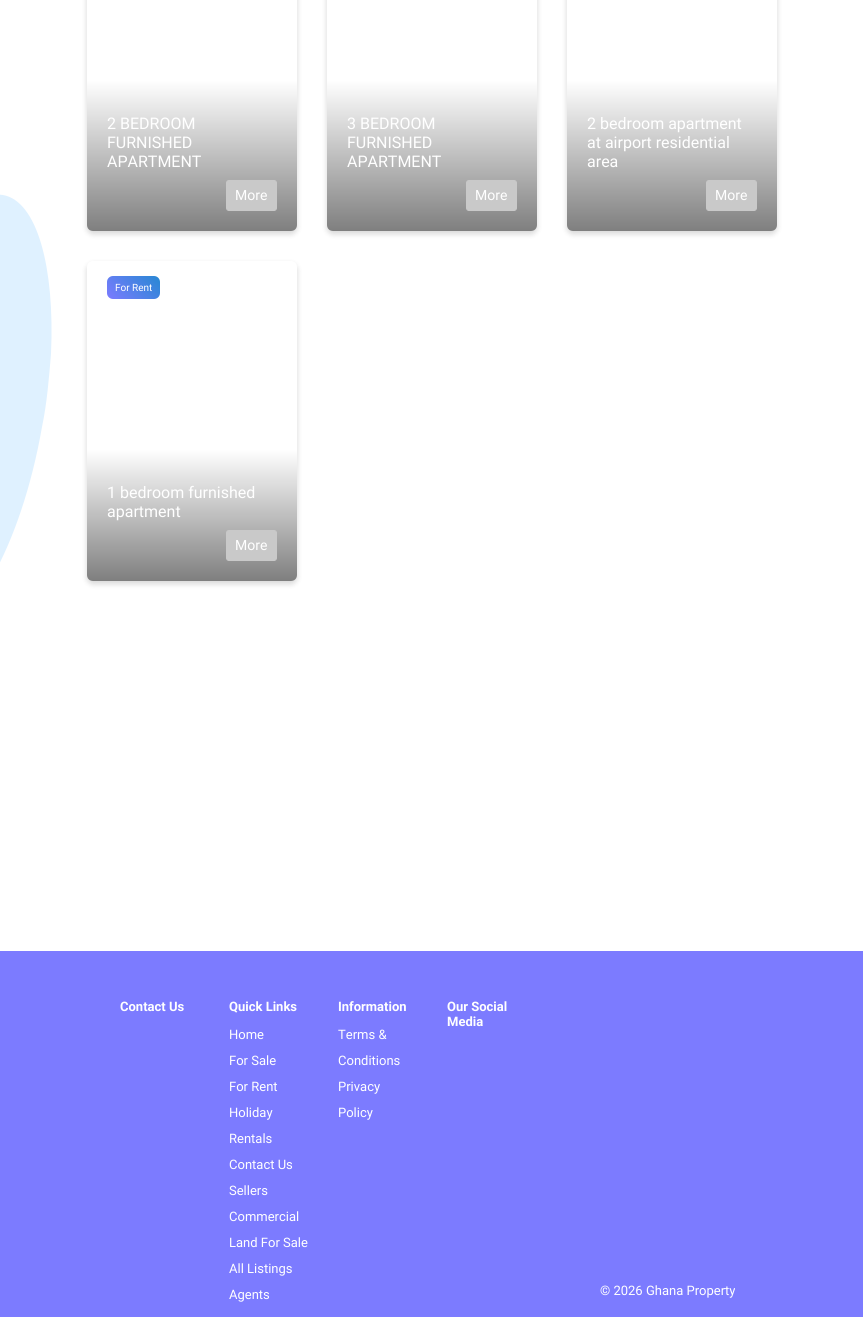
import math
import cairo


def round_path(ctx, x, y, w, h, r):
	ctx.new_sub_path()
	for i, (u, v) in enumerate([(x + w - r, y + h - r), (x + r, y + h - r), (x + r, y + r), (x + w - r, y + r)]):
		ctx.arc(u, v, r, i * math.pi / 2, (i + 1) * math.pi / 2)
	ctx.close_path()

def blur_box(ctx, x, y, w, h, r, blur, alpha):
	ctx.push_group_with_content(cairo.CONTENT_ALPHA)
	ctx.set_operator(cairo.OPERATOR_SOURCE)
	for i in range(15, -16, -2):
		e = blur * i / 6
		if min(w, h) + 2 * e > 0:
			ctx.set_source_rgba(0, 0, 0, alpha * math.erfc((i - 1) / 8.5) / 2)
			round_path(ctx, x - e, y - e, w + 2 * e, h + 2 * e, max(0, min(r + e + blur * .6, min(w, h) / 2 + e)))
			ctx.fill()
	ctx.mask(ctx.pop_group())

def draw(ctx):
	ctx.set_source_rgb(0.486, 0.482, 1)
	ctx.paint()
	ctx.set_source_rgb(1, 1, 1)
	ctx.rectangle(0, 0, 863, 951)
	ctx.fill()
	ctx.set_source_rgb(0.875, 0.945, 1)
	ctx.new_path()
	ctx.move_to(3, 195)
	ctx.curve_to(37, 201, 55, 267, 51, 354)
	ctx.curve_to(49, 378, 47, 403, 42, 427)
	ctx.curve_to(21, 547, -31, 639, -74, 631)
	ctx.curve_to(-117, 624, -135, 520, -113, 399)
	ctx.curve_to(-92, 279, -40, 187, 3, 195)
	ctx.close_path()
	ctx.fill()
	ctx.set_source_rgb(0, 0, 0)
	blur_box(ctx, 87, -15, 210, 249, 6, 3, 0.16)
	ctx.set_source_rgb(1, 1, 1)
	round_path(ctx, 87, -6, 210, 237, 6)
	ctx.fill()
	gradient = cairo.LinearGradient(192, 80, 192, 231)
	gradient.add_color_stop_rgba(0, 1, 1, 1, 1)
	gradient.add_color_stop_rgba(1, 0.498, 0.498, 0.498, 1)
	ctx.set_source(gradient)
	ctx.new_path()
	ctx.move_to(87, 80)
	ctx.line_to(297, 80)
	ctx.line_to(297, 225)
	ctx.curve_to(297, 228.5, 294.5, 231, 291, 231)
	ctx.line_to(93, 231)
	ctx.curve_to(89.5, 231, 87, 228.5, 87, 225)
	ctx.close_path()
	ctx.fill()
	ctx.select_font_face('Roboto')
	ctx.set_font_size(16)
	ctx.set_source_rgb(1, 1, 1)
	for x, y, s in [
		(107, 129, '2 BEDROOM'),
		(107, 148, 'FURNISHED'),
		(107, 167, 'APARTMENT'),
	]:
		ctx.move_to(x, y)
		ctx.show_text(s)
	ctx.set_source_rgb(0.788, 0.788, 0.788)
	round_path(ctx, 226.5, 180.5, 50, 30, 2.5)
	ctx.fill_preserve()
	ctx.set_line_width(1)
	ctx.stroke()
	ctx.set_font_size(14)
	ctx.set_source_rgb(1, 1, 1)
	ctx.move_to(235, 200)
	ctx.show_text('More')
	ctx.set_source_rgb(0, 0, 0)
	blur_box(ctx, 327, -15, 210, 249, 6, 3, 0.16)
	ctx.set_source_rgb(1, 1, 1)
	round_path(ctx, 327, -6, 210, 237, 6)
	ctx.fill()
	gradient = cairo.LinearGradient(432, 80, 432, 231)
	gradient.add_color_stop_rgba(0, 1, 1, 1, 1)
	gradient.add_color_stop_rgba(1, 0.498, 0.498, 0.498, 1)
	ctx.set_source(gradient)
	ctx.new_path()
	ctx.move_to(327, 80)
	ctx.line_to(537, 80)
	ctx.line_to(537, 225)
	ctx.curve_to(537, 228.5, 534.5, 231, 531, 231)
	ctx.line_to(333, 231)
	ctx.curve_to(329.5, 231, 327, 228.5, 327, 225)
	ctx.close_path()
	ctx.fill()
	ctx.set_font_size(16)
	ctx.set_source_rgb(1, 1, 1)
	for x, y, s in [
		(347, 129, '3 BEDROOM'),
		(347, 148, 'FURNISHED'),
		(347, 167, 'APARTMENT'),
	]:
		ctx.move_to(x, y)
		ctx.show_text(s)
	ctx.set_source_rgb(0.788, 0.788, 0.788)
	round_path(ctx, 466.5, 180.5, 50, 30, 2.5)
	ctx.fill_preserve()
	ctx.stroke()
	ctx.set_font_size(14)
	ctx.set_source_rgb(1, 1, 1)
	ctx.move_to(475, 200)
	ctx.show_text('More')
	ctx.set_source_rgb(0, 0, 0)
	blur_box(ctx, 567, -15, 210, 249, 6, 3, 0.16)
	ctx.set_source_rgb(1, 1, 1)
	round_path(ctx, 567, -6, 210, 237, 6)
	ctx.fill()
	gradient = cairo.LinearGradient(672, 80, 672, 231)
	gradient.add_color_stop_rgba(0, 1, 1, 1, 1)
	gradient.add_color_stop_rgba(1, 0.498, 0.498, 0.498, 1)
	ctx.set_source(gradient)
	ctx.new_path()
	ctx.move_to(567, 80)
	ctx.line_to(777, 80)
	ctx.line_to(777, 225)
	ctx.curve_to(777, 228.5, 774.5, 231, 771, 231)
	ctx.line_to(573, 231)
	ctx.curve_to(569.5, 231, 567, 228.5, 567, 225)
	ctx.close_path()
	ctx.fill()
	ctx.set_font_size(16)
	ctx.set_source_rgb(1, 1, 1)
	for x, y, s in [
		(587, 129, '2 bedroom apartment'),
		(587, 148, 'at airport residential'),
		(587, 167, 'area'),
	]:
		ctx.move_to(x, y)
		ctx.show_text(s)
	ctx.set_source_rgb(0.788, 0.788, 0.788)
	round_path(ctx, 706.5, 180.5, 50, 30, 2.5)
	ctx.fill_preserve()
	ctx.stroke()
	ctx.set_font_size(14)
	ctx.set_source_rgb(1, 1, 1)
	ctx.move_to(715, 200)
	ctx.show_text('More')
	ctx.set_source_rgb(0, 0, 0)
	blur_box(ctx, 87, 264, 210, 320, 6, 3, 0.16)
	ctx.set_source_rgb(1, 1, 1)
	round_path(ctx, 87, 261, 210, 320, 6)
	ctx.fill()
	gradient = cairo.LinearGradient(115, 307, 153, 269)
	gradient.add_color_stop_rgba(0, 0.486, 0.482, 1, 1)
	gradient.add_color_stop_rgba(1, 0.153, 0.533, 0.827, 1)
	ctx.set_source(gradient)
	round_path(ctx, 107, 276, 53, 23, 6)
	ctx.fill()
	ctx.set_font_size(10)
	ctx.set_source_rgb(1, 1, 1)
	ctx.move_to(115, 291)
	ctx.show_text('For Rent')
	gradient = cairo.LinearGradient(192, 449, 192, 581)
	gradient.add_color_stop_rgba(0, 1, 1, 1, 1)
	gradient.add_color_stop_rgba(1, 0.498, 0.498, 0.498, 1)
	ctx.set_source(gradient)
	ctx.new_path()
	ctx.move_to(87, 449)
	ctx.line_to(297, 449)
	ctx.line_to(297, 575)
	ctx.curve_to(297, 578.5, 294.5, 581, 291, 581)
	ctx.line_to(93, 581)
	ctx.curve_to(89.5, 581, 87, 578.5, 87, 575)
	ctx.close_path()
	ctx.fill()
	ctx.set_font_size(16)
	ctx.set_source_rgb(1, 1, 1)
	ctx.move_to(107, 498)
	ctx.show_text('1 bedroom furnished')
	ctx.move_to(107, 517)
	ctx.show_text('apartment')
	ctx.set_source_rgb(0.788, 0.788, 0.788)
	round_path(ctx, 226.5, 530.5, 50, 30, 2.5)
	ctx.fill_preserve()
	ctx.stroke()
	ctx.set_font_size(14)
	ctx.set_source_rgb(1, 1, 1)
	ctx.move_to(235, 550)
	ctx.show_text('More')
	ctx.select_font_face('Roboto', cairo.FONT_SLANT_NORMAL, cairo.FONT_WEIGHT_BOLD)
	ctx.set_font_size(13)
	ctx.move_to(120, 1011)
	ctx.show_text('Contact Us')
	ctx.move_to(229, 1011)
	ctx.show_text('Quick Links')
	ctx.select_font_face('Roboto')
	for x, y, s in [
		(229, 1039, 'Home'),
		(229, 1065, 'For Sale'),
		(229, 1091, 'For Rent'),
		(229, 1117, 'Holiday'),
		(229, 1143, 'Rentals'),
		(229, 1169, 'Contact Us'),
		(229, 1195, 'Sellers'),
		(229, 1221, 'Commercial'),
		(229, 1247, 'Land For Sale'),
		(229, 1273, 'All Listings'),
		(229, 1299, 'Agents'),
	]:
		ctx.move_to(x, y)
		ctx.show_text(s)
	ctx.select_font_face('Roboto', cairo.FONT_SLANT_NORMAL, cairo.FONT_WEIGHT_BOLD)
	ctx.move_to(338, 1011)
	ctx.show_text('Information')
	ctx.select_font_face('Roboto')
	for x, y, s in [
		(338, 1039, 'Terms &'),
		(338, 1065, 'Conditions'),
		(338, 1091, 'Privacy'),
		(338, 1117, 'Policy'),
	]:
		ctx.move_to(x, y)
		ctx.show_text(s)
	ctx.select_font_face('Roboto', cairo.FONT_SLANT_NORMAL, cairo.FONT_WEIGHT_BOLD)
	ctx.move_to(447, 1011)
	ctx.show_text('Our Social')
	ctx.move_to(447, 1026)
	ctx.show_text('Media')
	ctx.select_font_face('Roboto')
	ctx.move_to(600, 1295)
	ctx.show_text('© 2026 Ghana Property')


surface = cairo.ImageSurface(cairo.FORMAT_RGB24, 863, 1317)
ctx = cairo.Context(surface)
options = cairo.FontOptions()
options.set_hint_metrics(cairo.HINT_METRICS_OFF)
options.set_hint_style(cairo.HINT_STYLE_NONE)
ctx.set_font_options(options)
ctx.set_miter_limit(4)
draw(ctx)
surface.write_to_png('image.png')
